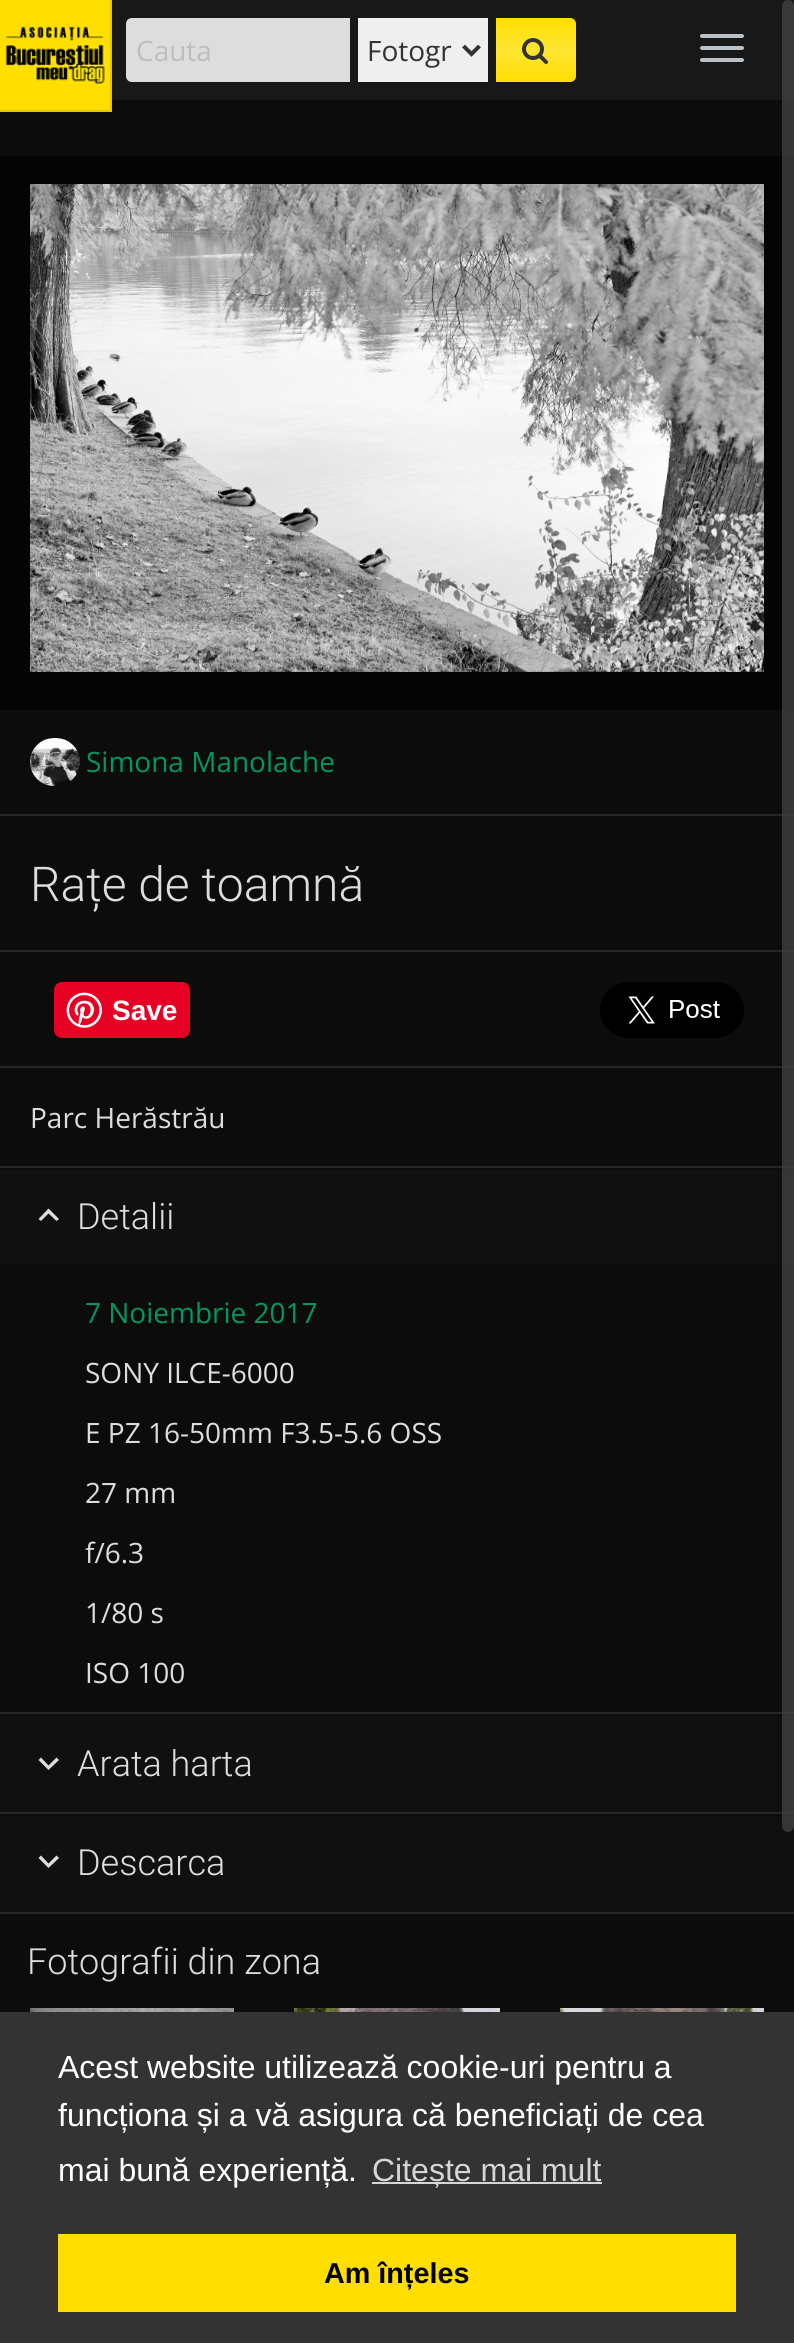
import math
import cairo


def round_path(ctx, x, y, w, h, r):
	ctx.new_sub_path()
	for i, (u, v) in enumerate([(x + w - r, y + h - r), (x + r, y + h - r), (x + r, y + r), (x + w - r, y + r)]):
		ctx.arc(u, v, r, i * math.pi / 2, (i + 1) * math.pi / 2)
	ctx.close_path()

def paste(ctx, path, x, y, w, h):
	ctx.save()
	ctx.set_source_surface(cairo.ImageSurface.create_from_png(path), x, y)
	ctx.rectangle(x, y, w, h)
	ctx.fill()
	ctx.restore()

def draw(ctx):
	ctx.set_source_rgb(0.047, 0.047, 0.047)
	ctx.paint()
	ctx.set_source_rgb(0.094, 0.094, 0.094)
	ctx.rectangle(112, 0, 682, 100)
	ctx.fill()
	ctx.set_source_rgb(1, 0.871, 0)
	ctx.rectangle(0, 0, 110, 110)
	ctx.fill()
	paste(ctx, 'media/1.png', 5, 25, 101, 60)
	ctx.set_source_rgb(0.902, 0.784, 0)
	ctx.rectangle(110, 0, 2, 112)
	ctx.fill()
	ctx.rectangle(0, 110, 112, 2)
	ctx.fill()
	ctx.set_source_rgb(0.867, 0.867, 0.867)
	ctx.new_path()
	ctx.move_to(132, 18)
	ctx.line_to(350, 18)
	ctx.line_to(350, 82)
	ctx.line_to(132, 82)
	ctx.curve_to(128.5, 82, 126, 79.5, 126, 76)
	ctx.line_to(126, 24)
	ctx.curve_to(126, 20.5, 128.5, 18, 132, 18)
	ctx.close_path()
	ctx.fill()
	ctx.select_font_face('Open Sans')
	ctx.set_font_size(28)
	ctx.set_source_rgb(0.741, 0.741, 0.741)
	ctx.move_to(136, 61)
	ctx.show_text('Cauta')
	ctx.set_source_rgb(0.937, 0.937, 0.937)
	ctx.rectangle(358, 18, 130, 64)
	ctx.fill()
	ctx.new_path()
	ctx.move_to(463.5, 46)
	ctx.line_to(471.5, 54)
	ctx.line_to(479.5, 46)
	ctx.set_source_rgb(0.2, 0.2, 0.2)
	ctx.set_line_width(4)
	ctx.stroke()
	ctx.move_to(367, 61)
	ctx.show_text('Fotogr')
	gradient = cairo.LinearGradient(536, 18, 536, 82)
	gradient.add_color_stop_rgba(0, 1, 0.871, 0, 1)
	gradient.add_color_stop_rgba(0.5, 1, 0.898, 0.2, 1)
	gradient.add_color_stop_rgba(1, 1, 0.871, 0, 1)
	ctx.set_source(gradient)
	ctx.new_path()
	ctx.move_to(496, 18)
	ctx.line_to(570, 18)
	ctx.curve_to(573.5, 18, 576, 20.5, 576, 24)
	ctx.line_to(576, 76)
	ctx.curve_to(576, 79.5, 573.5, 82, 570, 82)
	ctx.line_to(496, 82)
	ctx.close_path()
	ctx.fill()
	paste(ctx, 'media/2.png', 522, 38, 26, 26)
	ctx.set_source_rgb(0.725, 0.757, 0.78)
	round_path(ctx, 700, 34, 44, 4, 2)
	ctx.fill()
	round_path(ctx, 700, 46, 44, 4, 2)
	ctx.fill()
	round_path(ctx, 700, 58, 44, 4, 2)
	ctx.fill()
	ctx.set_source_rgb(0.016, 0.016, 0.016)
	ctx.rectangle(0, 156, 794, 554)
	ctx.fill()
	ctx.set_source_rgb(0.149, 0.149, 0.149)
	ctx.rectangle(0, 814, 794, 2)
	ctx.rectangle(0, 950, 794, 2)
	ctx.rectangle(0, 1066, 794, 2)
	ctx.rectangle(0, 1166, 794, 2)
	ctx.fill()
	ctx.set_source_rgb(0.063, 0.063, 0.063)
	ctx.rectangle(0, 1170, 794, 94)
	ctx.fill()
	ctx.set_source_rgb(0.149, 0.149, 0.149)
	ctx.rectangle(0, 1712, 794, 2)
	ctx.fill()
	ctx.set_source_rgb(0.063, 0.063, 0.063)
	ctx.rectangle(0, 1716, 794, 96)
	ctx.fill()
	ctx.set_source_rgb(0.149, 0.149, 0.149)
	ctx.rectangle(0, 1812, 794, 2)
	ctx.fill()
	ctx.set_source_rgb(0.063, 0.063, 0.063)
	ctx.rectangle(0, 1816, 794, 96)
	ctx.fill()
	ctx.set_source_rgba(0.259, 0.259, 0.259, 0.76)
	round_path(ctx, 782, 0, 12, 1832, 6)
	ctx.fill()
	paste(ctx, 'media/3.png', 30, 184, 734, 488)
	paste(ctx, 'media/4.png', 30, 738, 50, 48)
	ctx.set_source_rgb(0, 0.588, 0.4)
	ctx.move_to(86, 772)
	ctx.show_text('Simona Manolache')
	ctx.select_font_face('Roboto Light')
	ctx.set_font_size(48)
	ctx.set_source_rgb(0.867, 0.867, 0.867)
	ctx.move_to(30, 901)
	ctx.show_text('Rațe de toamnă')
	ctx.set_source_rgb(0.902, 0, 0.137)
	round_path(ctx, 54, 982, 136, 56, 8)
	ctx.fill()
	paste(ctx, 'media/5.png', 66, 992, 36, 36)
	ctx.select_font_face('Liberation Sans', cairo.FONT_SLANT_NORMAL, cairo.FONT_WEIGHT_BOLD)
	ctx.set_font_size(28)
	ctx.set_source_rgb(1, 1, 1)
	ctx.move_to(112, 1020)
	ctx.show_text('Save')
	paste(ctx, 'media/6.png', 600, 982, 144, 56)
	ctx.select_font_face('Open Sans')
	ctx.set_source_rgb(0.867, 0.867, 0.867)
	ctx.move_to(30, 1128)
	ctx.show_text('Parc Herăstrău')
	ctx.new_path()
	ctx.move_to(41, 1221)
	ctx.line_to(38.5, 1219)
	ctx.line_to(48.5, 1208.5)
	ctx.line_to(59, 1219)
	ctx.line_to(56.5, 1221)
	ctx.line_to(48.5, 1213.5)
	ctx.close_path()
	ctx.fill()
	ctx.select_font_face('Roboto Light')
	ctx.set_font_size(36)
	ctx.move_to(77, 1229)
	ctx.show_text('Detalii')
	ctx.select_font_face('Open Sans')
	ctx.set_font_size(28)
	ctx.set_source_rgb(0, 0.588, 0.4)
	ctx.move_to(85, 1323)
	ctx.show_text('7 Noiembrie 2017')
	ctx.set_source_rgb(0.867, 0.867, 0.867)
	for x, y, s in [
		(85, 1383, 'SONY ILCE-6000'),
		(85, 1443, 'E PZ 16-50mm F3.5-5.6 OSS'),
		(85, 1503, '27 mm'),
		(85, 1563, 'f/6.3'),
		(85, 1623, '1/80 s'),
		(85, 1683, 'ISO 100'),
	]:
		ctx.move_to(x, y)
		ctx.show_text(s)
	ctx.new_path()
	ctx.move_to(41, 1757.5)
	ctx.line_to(48.5, 1765.5)
	ctx.line_to(56.5, 1757.5)
	ctx.line_to(59, 1760)
	ctx.line_to(48.5, 1770)
	ctx.line_to(38.5, 1760)
	ctx.close_path()
	ctx.fill()
	ctx.select_font_face('Roboto Light')
	ctx.set_font_size(36)
	ctx.move_to(77, 1776)
	ctx.show_text('Arata harta')
	ctx.new_path()
	ctx.move_to(41, 1855.5)
	ctx.line_to(48.5, 1863.5)
	ctx.line_to(56.5, 1855.5)
	ctx.line_to(59, 1858)
	ctx.line_to(48.5, 1868)
	ctx.line_to(38.5, 1858)
	ctx.close_path()
	ctx.fill()
	ctx.move_to(77, 1875)
	ctx.show_text('Descarca')
	ctx.set_source_rgb(0.149, 0.149, 0.149)
	ctx.rectangle(0, 1912, 794, 2)
	ctx.fill()
	ctx.set_source_rgb(0.867, 0.867, 0.867)
	ctx.move_to(27, 1974)
	ctx.show_text('Fotografii din zona')
	paste(ctx, 'media/7.png', 30, 2008, 204, 4)
	paste(ctx, 'media/8.png', 294, 2008, 206, 4)
	paste(ctx, 'media/9.png', 560, 2008, 204, 4)
	ctx.set_source_rgb(0.2, 0.2, 0.2)
	ctx.rectangle(0, 2012, 794, 331)
	ctx.fill()
	ctx.select_font_face('Liberation Sans')
	ctx.set_font_size(32)
	ctx.set_source_rgb(1, 1, 1)
	for x, y, s in [
		(58, 2078, 'Acest website utilizează cookie-uri pentru a'),
		(58, 2126, 'funcționa și a vă asigura că beneficiați de cea'),
		(58, 2181, 'mai bună experiență.'),
	]:
		ctx.move_to(x, y)
		ctx.show_text(s)
	ctx.set_source_rgb(0.839, 0.839, 0.839)
	ctx.rectangle(372, 2182, 230, 2)
	ctx.fill()
	ctx.move_to(372, 2181)
	ctx.show_text('Citește mai mult')
	ctx.set_source_rgb(1, 0.871, 0)
	ctx.rectangle(58, 2234, 678, 78)
	ctx.fill()
	ctx.select_font_face('Liberation Sans', cairo.FONT_SLANT_NORMAL, cairo.FONT_WEIGHT_BOLD)
	ctx.set_font_size(28.75)
	ctx.set_source_rgb(0, 0, 0)
	ctx.move_to(324, 2283)
	ctx.show_text('Am înțeles')


surface = cairo.ImageSurface(cairo.FORMAT_RGB24, 794, 2343)
ctx = cairo.Context(surface)
options = cairo.FontOptions()
options.set_hint_metrics(cairo.HINT_METRICS_OFF)
options.set_hint_style(cairo.HINT_STYLE_NONE)
ctx.set_font_options(options)
ctx.set_miter_limit(4)
draw(ctx)
surface.write_to_png('image.png')
